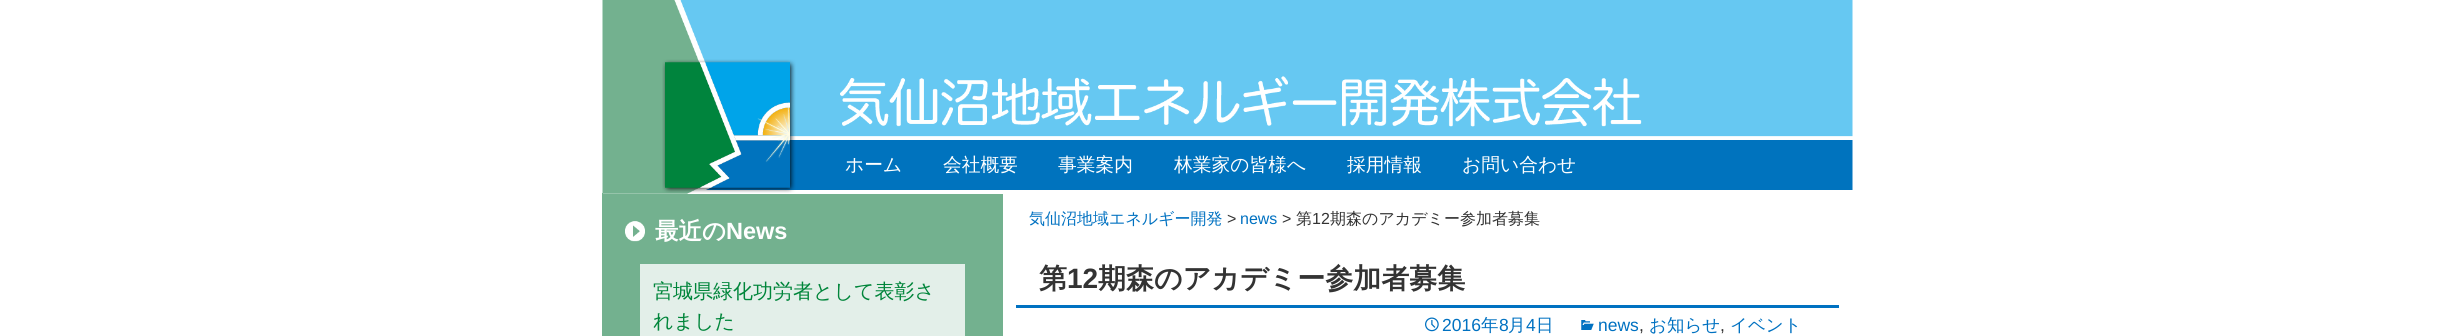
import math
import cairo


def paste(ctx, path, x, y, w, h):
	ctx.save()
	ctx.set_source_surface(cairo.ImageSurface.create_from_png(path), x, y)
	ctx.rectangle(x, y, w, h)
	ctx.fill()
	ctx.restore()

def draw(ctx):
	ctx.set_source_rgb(1, 1, 1)
	ctx.paint()
	ctx.set_source_rgb(0.451, 0.694, 0.561)
	ctx.rectangle(602, 193, 401, 143)
	ctx.fill()
	ctx.set_source_rgb(1, 1, 1)
	ctx.rectangle(603, 193, 400, 1)
	ctx.fill()
	paste(ctx, 'media/1.png', 602, 0, 1251, 194)
	paste(ctx, 'media/2.png', 665, 62, 125, 126)
	paste(ctx, 'media/3.png', 840, 76, 802, 51)
	ctx.select_font_face('WenQuanYi Zen Hei Medium')
	ctx.set_font_size(18.75)
	for x, y, s in [
		(845, 171, 'ホーム'),
		(943, 171, '会社概要'),
		(1058, 171, '事業案内'),
		(1174, 171, '林業家の皆様へ'),
		(1347, 171, '採用情報'),
		(1462, 171, 'お問い合わせ'),
	]:
		ctx.move_to(x, y)
		ctx.show_text(s)
	paste(ctx, 'media/4.png', 625, 221, 20, 21)
	ctx.select_font_face('WenQuanYi Zen Hei', cairo.FONT_SLANT_NORMAL, cairo.FONT_WEIGHT_BOLD)
	ctx.set_font_size(23.5)
	ctx.move_to(655, 239)
	ctx.show_text('最近の')
	ctx.select_font_face('Liberation Sans', cairo.FONT_SLANT_NORMAL, cairo.FONT_WEIGHT_BOLD)
	ctx.move_to(726, 239)
	ctx.show_text('News')
	ctx.set_source_rgb(0.89, 0.937, 0.914)
	ctx.rectangle(640, 264, 325, 72)
	ctx.fill()
	ctx.select_font_face('WenQuanYi Zen Hei Medium')
	ctx.set_font_size(20)
	ctx.set_source_rgb(0, 0.522, 0.227)
	ctx.move_to(653, 298)
	ctx.show_text('宮城県緑化功労者として表彰さ')
	ctx.move_to(653, 328)
	ctx.show_text('れました')
	ctx.set_font_size(16)
	ctx.set_source_rgb(0, 0.443, 0.757)
	ctx.move_to(1029, 224)
	ctx.show_text('気仙沼地域エネルギー開発')
	ctx.select_font_face('Liberation Sans')
	ctx.set_source_rgb(0.2, 0.2, 0.2)
	ctx.move_to(1227, 224)
	ctx.show_text('>')
	ctx.set_source_rgb(0, 0.443, 0.757)
	ctx.move_to(1240, 224)
	ctx.show_text('news')
	ctx.set_source_rgb(0.2, 0.2, 0.2)
	ctx.move_to(1282, 224)
	ctx.show_text('>')
	ctx.select_font_face('WenQuanYi Zen Hei Medium')
	ctx.move_to(1296, 224)
	ctx.show_text('第')
	ctx.select_font_face('Liberation Sans')
	ctx.move_to(1312, 224)
	ctx.show_text('12')
	ctx.select_font_face('WenQuanYi Zen Hei Medium')
	ctx.move_to(1330, 224)
	ctx.show_text('期森のアカデミー参加者募集')
	ctx.set_source_rgb(0, 0.443, 0.757)
	ctx.rectangle(1016, 305, 823, 3)
	ctx.fill()
	ctx.select_font_face('WenQuanYi Zen Hei', cairo.FONT_SLANT_NORMAL, cairo.FONT_WEIGHT_BOLD)
	ctx.set_font_size(28)
	ctx.set_source_rgb(0.2, 0.2, 0.2)
	ctx.move_to(1039, 288)
	ctx.show_text('第')
	ctx.select_font_face('Liberation Sans', cairo.FONT_SLANT_NORMAL, cairo.FONT_WEIGHT_BOLD)
	ctx.move_to(1067, 288)
	ctx.show_text('12')
	ctx.select_font_face('WenQuanYi Zen Hei', cairo.FONT_SLANT_NORMAL, cairo.FONT_WEIGHT_BOLD)
	ctx.move_to(1098, 288)
	ctx.show_text('期森のアカデミー参加者募集')
	paste(ctx, 'media/5.png', 1425, 317, 14, 15)
	ctx.select_font_face('Liberation Sans')
	ctx.set_font_size(17.5)
	ctx.set_source_rgb(0, 0.443, 0.757)
	ctx.move_to(1442, 331)
	ctx.show_text('2016')
	ctx.select_font_face('WenQuanYi Zen Hei Medium')
	ctx.move_to(1481, 331)
	ctx.show_text('年')
	ctx.select_font_face('Liberation Sans')
	ctx.move_to(1499, 331)
	ctx.show_text('8')
	ctx.select_font_face('WenQuanYi Zen Hei Medium')
	ctx.move_to(1508, 331)
	ctx.show_text('月')
	ctx.select_font_face('Liberation Sans')
	ctx.move_to(1526, 331)
	ctx.show_text('4')
	ctx.select_font_face('WenQuanYi Zen Hei Medium')
	ctx.move_to(1536, 331)
	ctx.show_text('日')
	paste(ctx, 'media/6.png', 1581, 320, 13, 10)
	ctx.select_font_face('Liberation Sans')
	ctx.move_to(1598, 331)
	ctx.show_text('news')
	ctx.set_source_rgb(0.2, 0.2, 0.2)
	ctx.move_to(1639, 331)
	ctx.show_text(',')
	ctx.select_font_face('WenQuanYi Zen Hei Medium')
	ctx.set_source_rgb(0, 0.443, 0.757)
	ctx.move_to(1649, 331)
	ctx.show_text('お知らせ')
	ctx.select_font_face('Liberation Sans')
	ctx.set_source_rgb(0.2, 0.2, 0.2)
	ctx.move_to(1720, 331)
	ctx.show_text(',')
	ctx.select_font_face('WenQuanYi Zen Hei Medium')
	ctx.set_source_rgb(0, 0.443, 0.757)
	ctx.move_to(1730, 331)
	ctx.show_text('イベント')


surface = cairo.ImageSurface(cairo.FORMAT_RGB24, 2454, 336)
ctx = cairo.Context(surface)
options = cairo.FontOptions()
options.set_hint_metrics(cairo.HINT_METRICS_OFF)
options.set_hint_style(cairo.HINT_STYLE_NONE)
ctx.set_font_options(options)
ctx.set_miter_limit(4)
draw(ctx)
surface.write_to_png('image.png')
